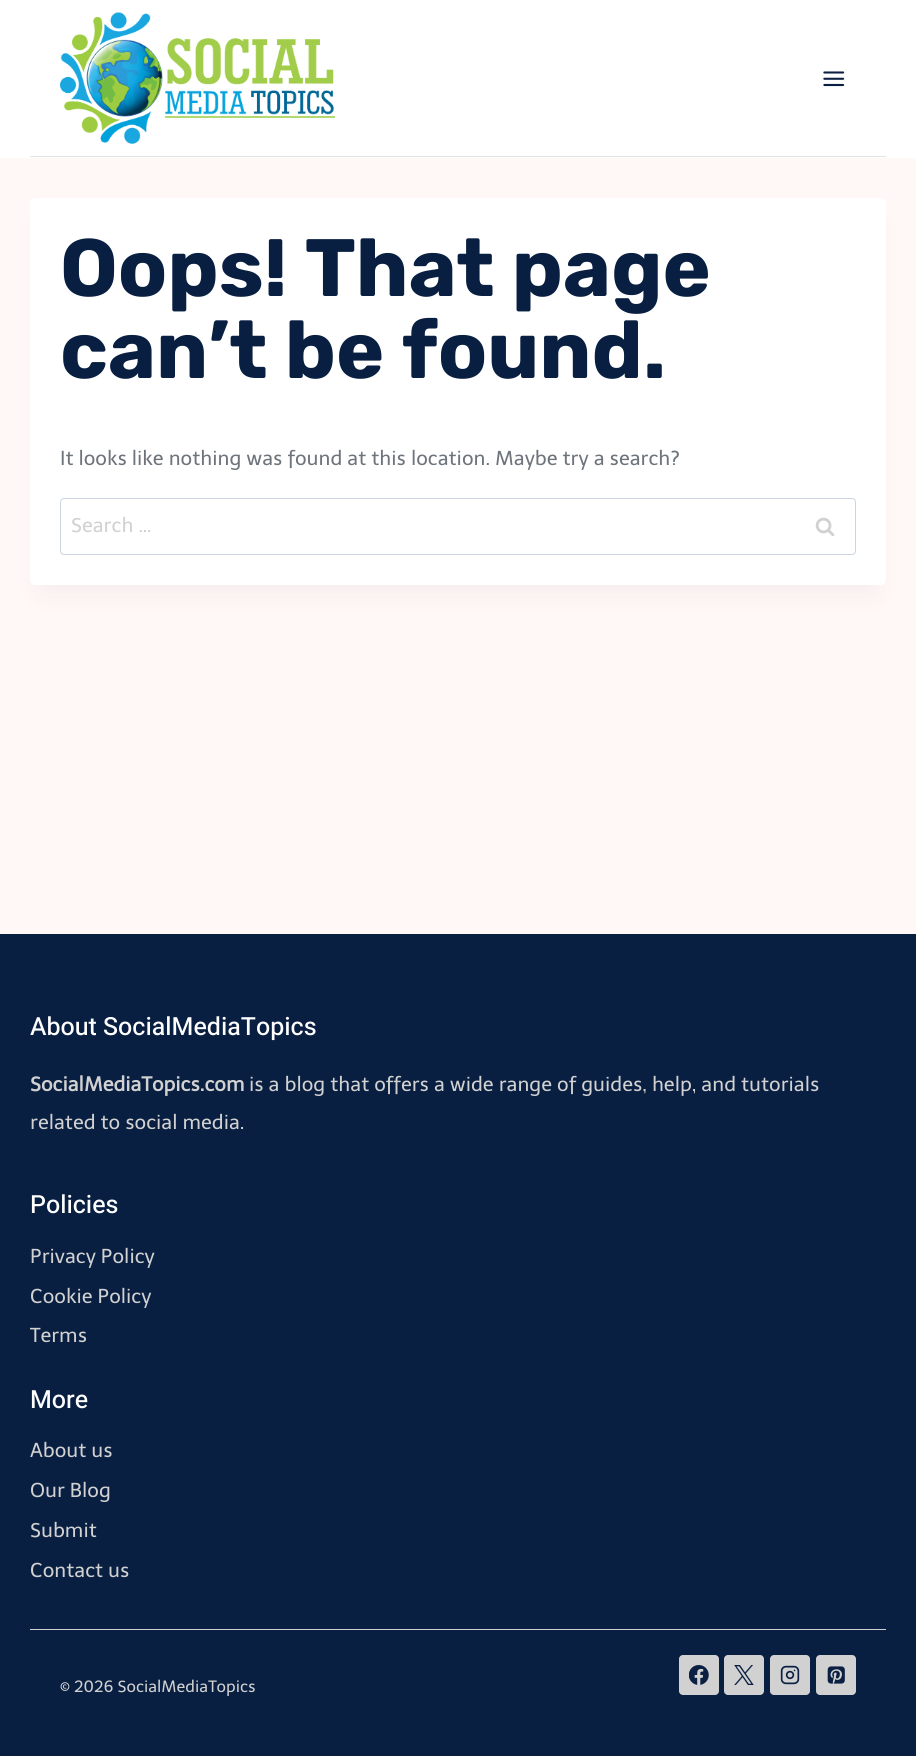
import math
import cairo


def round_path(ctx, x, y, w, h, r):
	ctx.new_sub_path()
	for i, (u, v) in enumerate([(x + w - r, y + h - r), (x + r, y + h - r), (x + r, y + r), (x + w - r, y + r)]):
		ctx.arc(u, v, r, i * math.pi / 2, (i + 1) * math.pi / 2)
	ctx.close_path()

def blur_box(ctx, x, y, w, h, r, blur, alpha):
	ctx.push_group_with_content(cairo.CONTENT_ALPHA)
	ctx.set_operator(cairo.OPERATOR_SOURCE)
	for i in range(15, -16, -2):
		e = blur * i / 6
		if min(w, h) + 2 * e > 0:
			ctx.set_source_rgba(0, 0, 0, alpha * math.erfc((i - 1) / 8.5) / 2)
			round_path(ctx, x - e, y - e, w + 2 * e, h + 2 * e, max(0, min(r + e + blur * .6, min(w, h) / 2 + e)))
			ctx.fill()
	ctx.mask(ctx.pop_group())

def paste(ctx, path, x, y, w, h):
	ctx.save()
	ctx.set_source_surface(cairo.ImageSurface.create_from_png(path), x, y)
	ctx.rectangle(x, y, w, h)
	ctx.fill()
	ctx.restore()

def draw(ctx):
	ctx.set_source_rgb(1, 0.969, 0.961)
	ctx.paint()
	ctx.set_source_rgb(1, 1, 1)
	ctx.rectangle(0, 0, 916, 158)
	ctx.fill()
	ctx.set_source_rgb(0.886, 0.89, 0.898)
	ctx.rectangle(30, 156, 856, 1)
	ctx.fill()
	paste(ctx, 'media/1.png', 60, 12, 275, 132)
	paste(ctx, 'media/2.png', 823, 71, 22, 16)
	ctx.set_source_rgb(0, 0, 0)
	blur_box(ctx, 43, 229, 831, 362, 0, 15.5, 0.05)
	ctx.set_source_rgb(1, 1, 1)
	round_path(ctx, 30, 198, 856, 387, 5)
	ctx.fill()
	ctx.select_font_face('Rubik', cairo.FONT_SLANT_NORMAL, cairo.FONT_WEIGHT_BOLD)
	ctx.set_font_size(81.25)
	ctx.set_source_rgb(0.039, 0.122, 0.255)
	ctx.move_to(60, 296)
	ctx.show_text('Oops! That page')
	ctx.move_to(60, 378)
	ctx.show_text('can’t be found.')
	ctx.select_font_face('Telex')
	ctx.set_font_size(20)
	ctx.set_source_rgb(0.431, 0.455, 0.486)
	ctx.move_to(60, 465)
	ctx.show_text('It looks like nothing was found at this location. Maybe try a search?')
	round_path(ctx, 60.5, 498.5, 795, 56, 3.5)
	ctx.set_source_rgb(0.796, 0.835, 0.878)
	ctx.set_line_width(1)
	ctx.stroke()
	ctx.set_source_rgb(0.82, 0.82, 0.82)
	ctx.move_to(71, 532)
	ctx.show_text('Search …')
	paste(ctx, 'media/3.png', 815, 517, 20, 19)
	ctx.set_source_rgb(0.039, 0.122, 0.255)
	ctx.rectangle(0, 934, 916, 822)
	ctx.fill()
	ctx.select_font_face('Heebo Medium')
	ctx.set_font_size(25)
	ctx.set_source_rgb(1, 1, 1)
	ctx.move_to(30, 1035)
	ctx.show_text('About SocialMediaTopics')
	ctx.select_font_face('Telex', cairo.FONT_SLANT_NORMAL, cairo.FONT_WEIGHT_BOLD)
	ctx.set_font_size(20)
	ctx.set_source_rgb(0.82, 0.82, 0.82)
	ctx.move_to(30, 1091)
	ctx.show_text('SocialMediaTopics.com')
	ctx.select_font_face('Telex')
	ctx.move_to(249, 1091)
	ctx.show_text('is a blog that offers a wide range of guides, help, and tutorials')
	ctx.move_to(30, 1129)
	ctx.show_text('related to social media.')
	ctx.select_font_face('Heebo Medium')
	ctx.set_font_size(25)
	ctx.set_source_rgb(1, 1, 1)
	ctx.move_to(30, 1213)
	ctx.show_text('Policies')
	ctx.select_font_face('Telex')
	ctx.set_font_size(20)
	ctx.set_source_rgb(0.82, 0.82, 0.82)
	for x, y, s in [
		(30, 1263, 'Privacy Policy'),
		(30, 1303, 'Cookie Policy'),
		(30, 1342, 'Terms'),
	]:
		ctx.move_to(x, y)
		ctx.show_text(s)
	ctx.select_font_face('Heebo Medium')
	ctx.set_font_size(25)
	ctx.set_source_rgb(1, 1, 1)
	ctx.move_to(30, 1408)
	ctx.show_text('More')
	ctx.select_font_face('Telex')
	ctx.set_font_size(20)
	ctx.set_source_rgb(0.82, 0.82, 0.82)
	for x, y, s in [
		(30, 1457, 'About us'),
		(30, 1497, 'Our Blog'),
		(30, 1537, 'Submit'),
		(30, 1577, 'Contact us'),
	]:
		ctx.move_to(x, y)
		ctx.show_text(s)
	ctx.rectangle(30, 1629, 856, 1)
	ctx.fill()
	ctx.set_font_size(16.25)
	ctx.move_to(60, 1692)
	ctx.show_text('© 2026 SocialMediaTopics')
	round_path(ctx, 679, 1655, 40, 40, 4)
	ctx.fill()
	paste(ctx, 'media/4.png', 689, 1665, 20, 20)
	round_path(ctx, 724, 1655, 40, 40, 4)
	ctx.fill()
	paste(ctx, 'media/5.png', 734, 1665, 20, 20)
	round_path(ctx, 770, 1655, 40, 40, 4)
	ctx.fill()
	paste(ctx, 'media/6.png', 780, 1665, 20, 20)
	round_path(ctx, 816, 1655, 40, 40, 4)
	ctx.fill()
	paste(ctx, 'media/7.png', 827, 1666, 18, 18)


surface = cairo.ImageSurface(cairo.FORMAT_RGB24, 916, 1756)
ctx = cairo.Context(surface)
options = cairo.FontOptions()
options.set_hint_metrics(cairo.HINT_METRICS_OFF)
options.set_hint_style(cairo.HINT_STYLE_NONE)
ctx.set_font_options(options)
ctx.set_miter_limit(4)
draw(ctx)
surface.write_to_png('image.png')
